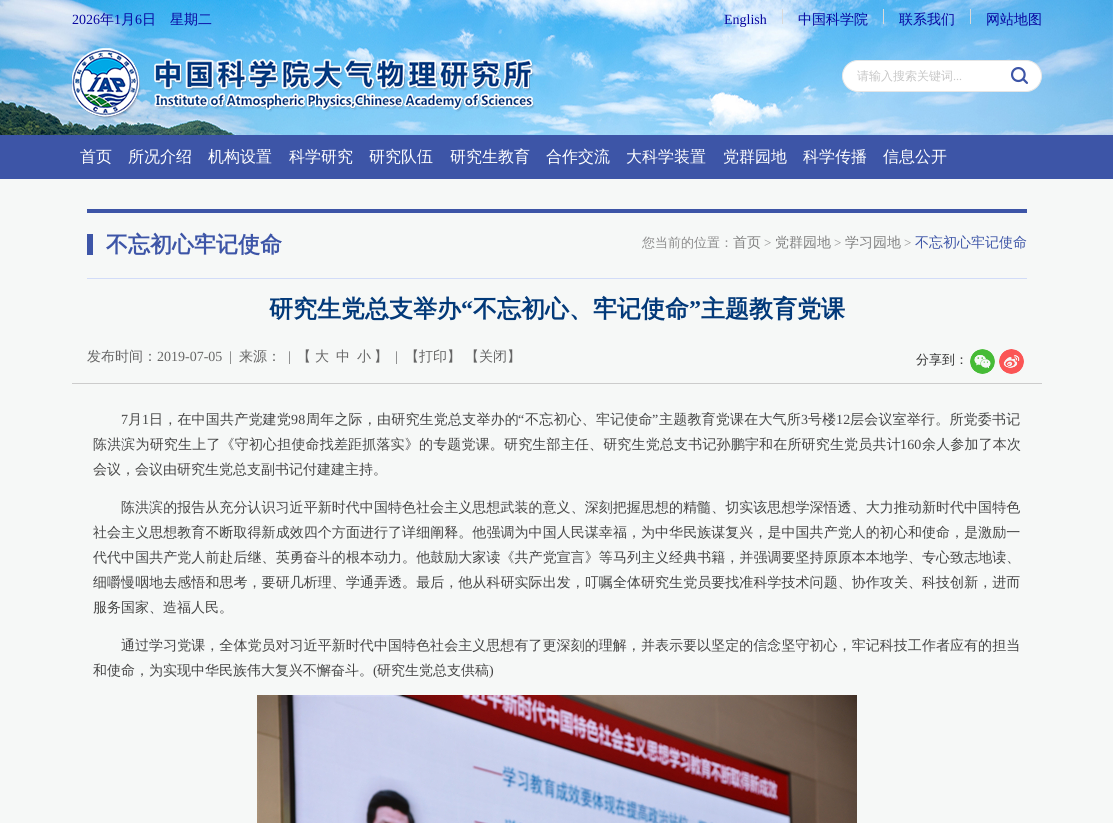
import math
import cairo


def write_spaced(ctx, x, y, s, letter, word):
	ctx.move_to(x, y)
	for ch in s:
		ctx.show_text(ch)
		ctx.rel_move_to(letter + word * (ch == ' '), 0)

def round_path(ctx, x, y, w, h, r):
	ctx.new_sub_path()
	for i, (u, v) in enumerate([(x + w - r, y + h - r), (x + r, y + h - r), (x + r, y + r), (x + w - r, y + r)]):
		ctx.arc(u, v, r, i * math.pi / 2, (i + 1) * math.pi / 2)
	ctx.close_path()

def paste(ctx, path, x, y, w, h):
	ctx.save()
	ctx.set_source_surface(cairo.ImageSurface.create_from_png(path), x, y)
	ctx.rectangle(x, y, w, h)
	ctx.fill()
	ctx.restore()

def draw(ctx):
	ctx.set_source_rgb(0.961, 0.969, 0.965)
	ctx.paint()
	paste(ctx, 'media/1.png', 0, 0, 1113, 135)
	ctx.select_font_face('Liberation Serif')
	ctx.set_font_size(14)
	ctx.set_source_rgb(0.031, 0.024, 0.627)
	ctx.move_to(72, 24)
	ctx.show_text('2026')
	ctx.select_font_face('WenQuanYi Zen Hei Medium')
	ctx.move_to(100, 24)
	ctx.show_text('年')
	ctx.select_font_face('Liberation Serif')
	ctx.move_to(114, 24)
	ctx.show_text('1')
	ctx.select_font_face('WenQuanYi Zen Hei Medium')
	ctx.move_to(121, 24)
	ctx.show_text('月')
	ctx.select_font_face('Liberation Serif')
	ctx.move_to(135, 24)
	ctx.show_text('6')
	ctx.select_font_face('WenQuanYi Zen Hei Medium')
	ctx.move_to(142, 24)
	ctx.show_text('日')
	ctx.move_to(170, 24)
	ctx.show_text('星期二')
	ctx.select_font_face('Liberation Serif')
	ctx.move_to(724, 24)
	ctx.show_text('English')
	ctx.set_source_rgb(0.851, 0.851, 0.851)
	ctx.rectangle(782, 9, 1, 15)
	ctx.fill()
	ctx.select_font_face('WenQuanYi Zen Hei Medium')
	ctx.set_source_rgb(0.031, 0.024, 0.627)
	ctx.move_to(798, 24)
	ctx.show_text('中国科学院')
	ctx.set_source_rgb(0.851, 0.851, 0.851)
	ctx.rectangle(883, 9, 1, 15)
	ctx.fill()
	ctx.set_source_rgb(0.031, 0.024, 0.627)
	ctx.move_to(899, 24)
	ctx.show_text('联系我们')
	ctx.set_source_rgb(0.851, 0.851, 0.851)
	ctx.rectangle(970, 9, 1, 15)
	ctx.fill()
	ctx.set_source_rgb(0.031, 0.024, 0.627)
	ctx.move_to(986, 24)
	ctx.show_text('网站地图')
	paste(ctx, 'media/2.png', 72, 48, 463, 71)
	ctx.set_source_rgb(1, 1, 1)
	round_path(ctx, 842.5, 60.5, 199, 31, 15.5)
	ctx.fill_preserve()
	ctx.set_source_rgb(0.902, 0.902, 0.902)
	ctx.set_line_width(1)
	ctx.stroke()
	ctx.set_font_size(12)
	ctx.set_source_rgb(0.78, 0.78, 0.78)
	ctx.move_to(857, 80)
	ctx.show_text('请输入搜索关键词')
	ctx.select_font_face('Liberation Serif')
	ctx.move_to(953, 80)
	ctx.show_text('...')
	paste(ctx, 'media/3.png', 1011, 67, 17, 17)
	ctx.set_source_rgb(0.239, 0.333, 0.655)
	ctx.rectangle(0, 135, 1113, 44)
	ctx.fill()
	ctx.select_font_face('WenQuanYi Zen Hei Medium')
	ctx.set_font_size(16)
	ctx.set_source_rgb(1, 1, 1)
	for x, y, s in [
		(80, 162, '首页'),
		(128, 162, '所况介绍'),
		(208, 162, '机构设置'),
		(289, 162, '科学研究'),
		(369, 162, '研究队伍'),
		(450, 162, '研究生教育'),
		(546, 162, '合作交流'),
		(626, 162, '大科学装置'),
		(723, 162, '党群园地'),
		(803, 162, '科学传播'),
		(883, 162, '信息公开'),
	]:
		ctx.move_to(x, y)
		ctx.show_text(s)
	ctx.set_source_rgb(0.239, 0.333, 0.655)
	ctx.rectangle(87, 209, 940, 4)
	ctx.fill()
	ctx.rectangle(87, 234, 6, 21)
	ctx.fill()
	ctx.select_font_face('WenQuanYi Zen Hei', cairo.FONT_SLANT_NORMAL, cairo.FONT_WEIGHT_BOLD)
	ctx.set_font_size(22)
	ctx.move_to(106, 252)
	ctx.show_text('不忘初心牢记使命')
	ctx.select_font_face('WenQuanYi Zen Hei Medium')
	ctx.set_font_size(13)
	ctx.set_source_rgb(0.545, 0.545, 0.545)
	ctx.move_to(642, 247)
	ctx.show_text('您当前的位置：')
	ctx.set_font_size(14)
	ctx.set_source_rgb(0.502, 0.502, 0.502)
	ctx.move_to(733, 247)
	ctx.show_text('首页')
	ctx.select_font_face('Liberation Serif')
	ctx.set_font_size(13)
	ctx.set_source_rgb(0.545, 0.545, 0.545)
	ctx.move_to(764, 247)
	ctx.show_text('>')
	ctx.select_font_face('WenQuanYi Zen Hei Medium')
	ctx.set_font_size(14)
	ctx.set_source_rgb(0.502, 0.502, 0.502)
	ctx.move_to(775, 247)
	ctx.show_text('党群园地')
	ctx.select_font_face('Liberation Serif')
	ctx.set_font_size(13)
	ctx.set_source_rgb(0.545, 0.545, 0.545)
	ctx.move_to(834, 247)
	ctx.show_text('>')
	ctx.select_font_face('WenQuanYi Zen Hei Medium')
	ctx.set_font_size(14)
	ctx.set_source_rgb(0.502, 0.502, 0.502)
	ctx.move_to(845, 247)
	ctx.show_text('学习园地')
	ctx.select_font_face('Liberation Serif')
	ctx.set_font_size(13)
	ctx.set_source_rgb(0.545, 0.545, 0.545)
	ctx.move_to(904, 247)
	ctx.show_text('>')
	ctx.select_font_face('WenQuanYi Zen Hei Medium')
	ctx.set_font_size(14)
	ctx.set_source_rgb(0.239, 0.333, 0.655)
	ctx.move_to(915, 247)
	ctx.show_text('不忘初心牢记使命')
	ctx.set_source_rgb(0.824, 0.863, 0.969)
	ctx.rectangle(87, 278, 940, 1)
	ctx.fill()
	ctx.select_font_face('WenQuanYi Zen Hei', cairo.FONT_SLANT_NORMAL, cairo.FONT_WEIGHT_BOLD)
	ctx.set_font_size(24)
	ctx.set_source_rgb(0.008, 0.224, 0.475)
	ctx.move_to(269, 317)
	ctx.show_text('研究生党总支举办')
	ctx.select_font_face('Liberation Serif', cairo.FONT_SLANT_NORMAL, cairo.FONT_WEIGHT_BOLD)
	ctx.move_to(461, 317)
	ctx.show_text('“')
	ctx.select_font_face('WenQuanYi Zen Hei', cairo.FONT_SLANT_NORMAL, cairo.FONT_WEIGHT_BOLD)
	ctx.move_to(473, 317)
	ctx.show_text('不忘初心、牢记使命')
	ctx.select_font_face('Liberation Serif', cairo.FONT_SLANT_NORMAL, cairo.FONT_WEIGHT_BOLD)
	ctx.move_to(689, 317)
	ctx.show_text('”')
	ctx.select_font_face('WenQuanYi Zen Hei', cairo.FONT_SLANT_NORMAL, cairo.FONT_WEIGHT_BOLD)
	ctx.move_to(701, 317)
	ctx.show_text('主题教育党课')
	ctx.set_source_rgb(0.8, 0.8, 0.8)
	ctx.rectangle(72, 383, 970, 1)
	ctx.fill()
	ctx.select_font_face('WenQuanYi Zen Hei Medium')
	ctx.set_font_size(14)
	ctx.set_source_rgb(0.4, 0.4, 0.4)
	ctx.move_to(87, 361)
	ctx.show_text('发布时间：')
	ctx.select_font_face('Liberation Serif')
	ctx.move_to(157, 361)
	ctx.show_text('2019-07-05  |')
	ctx.select_font_face('WenQuanYi Zen Hei Medium')
	ctx.move_to(239, 361)
	ctx.show_text('来源：')
	ctx.select_font_face('Liberation Serif')
	ctx.move_to(288, 361)
	ctx.show_text('|')
	ctx.select_font_face('WenQuanYi Zen Hei Medium')
	for x, y, s in [
		(297, 361, '【'),
		(315, 361, '大'),
		(336, 361, '中'),
		(357, 361, '小'),
		(374, 361, '】'),
	]:
		ctx.move_to(x, y)
		ctx.show_text(s)
	ctx.select_font_face('Liberation Serif')
	ctx.move_to(395, 361)
	ctx.show_text('|')
	ctx.select_font_face('WenQuanYi Zen Hei Medium')
	ctx.move_to(405, 361)
	ctx.show_text('【打印】')
	ctx.move_to(465, 361)
	ctx.show_text('【关闭】')
	ctx.set_font_size(13)
	ctx.set_source_rgb(0.2, 0.2, 0.2)
	ctx.move_to(916, 364)
	ctx.show_text('分享到：')
	paste(ctx, 'media/4.png', 970, 349, 25, 25)
	paste(ctx, 'media/5.png', 999, 349, 25, 25)
	ctx.select_font_face('Liberation Serif')
	ctx.set_font_size(14)
	ctx.set_source_rgb(0.271, 0.271, 0.271)
	write_spaced(ctx, 121, 424, '7', 0.2, 0)
	ctx.select_font_face('WenQuanYi Zen Hei Medium')
	write_spaced(ctx, 128, 424, '月', 0.2, 0)
	ctx.select_font_face('Liberation Serif')
	write_spaced(ctx, 142, 424, '1', 0.2, 0)
	ctx.select_font_face('WenQuanYi Zen Hei Medium')
	write_spaced(ctx, 149, 424, '日，在中国共产党建党', 0.2, 0)
	ctx.select_font_face('Liberation Serif')
	write_spaced(ctx, 291, 424, '98', 0.2, 0)
	ctx.select_font_face('WenQuanYi Zen Hei Medium')
	write_spaced(ctx, 306, 424, '周年之际，由研究生党总支举办的', 0.2, 0)
	ctx.select_font_face('Liberation Serif')
	write_spaced(ctx, 518, 424, '“', 0.2, 0)
	ctx.select_font_face('WenQuanYi Zen Hei Medium')
	write_spaced(ctx, 525, 424, '不忘初心、牢记使命', 0.2, 0)
	ctx.select_font_face('Liberation Serif')
	write_spaced(ctx, 652, 424, '”', 0.2, 0)
	ctx.select_font_face('WenQuanYi Zen Hei Medium')
	write_spaced(ctx, 659, 424, '主题教育党课在大气所', 0.2, 0)
	ctx.select_font_face('Liberation Serif')
	write_spaced(ctx, 801, 424, '3', 0.2, 0)
	ctx.select_font_face('WenQuanYi Zen Hei Medium')
	write_spaced(ctx, 808, 424, '号楼', 0.2, 0)
	ctx.select_font_face('Liberation Serif')
	write_spaced(ctx, 836, 424, '12', 0.2, 0)
	ctx.select_font_face('WenQuanYi Zen Hei Medium')
	write_spaced(ctx, 850, 424, '层会议室举行。所党委书记', 0.2, 0)
	write_spaced(ctx, 93, 449, '陈洪滨为研究生上了《守初心担使命找差距抓落实》的专题党课。研究生部主任、研究生党总支书记孙鹏宇和在所研究生党员共计', 0.17, 0)
	ctx.select_font_face('Liberation Serif')
	write_spaced(ctx, 900, 449, '160', 0.17, 0)
	ctx.select_font_face('WenQuanYi Zen Hei Medium')
	write_spaced(ctx, 922, 449, '余人参加了本次', 0.17, 0)
	ctx.move_to(93, 474)
	ctx.show_text('会议，会议由研究生党总支副书记付建建主持。')
	for x, y, s in [
		(121, 512, '陈洪滨的报告从充分认识习近平新时代中国特色社会主义思想武装的意义、深刻把握思想的精髓、切实该思想学深悟透、大力推动新时代中国特色'),
		(93, 537, '社会主义思想教育不断取得新成效四个方面进行了详细阐释。他强调为中国人民谋幸福，为中华民族谋复兴，是中国共产党人的初心和使命，是激励一'),
		(93, 562, '代代中国共产党人前赴后继、英勇奋斗的根本动力。他鼓励大家读《共产党宣言》等马列主义经典书籍，并强调要坚持原原本本地学、专心致志地读、'),
		(93, 587, '细嚼慢咽地去感悟和思考，要研几析理、学通弄透。最后，他从科研实际出发，叮嘱全体研究生党员要找准科学技术问题、协作攻关、科技创新，进而'),
	]:
		write_spaced(ctx, x, y, s, 0.05, 0)
	ctx.move_to(93, 612)
	ctx.show_text('服务国家、造福人民。')
	write_spaced(ctx, 121, 650, '通过学习党课，全体党员对习近平新时代中国特色社会主义思想有了更深刻的理解，并表示要以坚定的信念坚守初心，牢记科技工作者应有的担当', 0.05, 0)
	ctx.move_to(93, 675)
	ctx.show_text('和使命，为实现中华民族伟大复兴不懈奋斗。')
	ctx.select_font_face('Liberation Serif')
	ctx.move_to(373, 675)
	ctx.show_text('(')
	ctx.select_font_face('WenQuanYi Zen Hei Medium')
	ctx.move_to(377, 675)
	ctx.show_text('研究生党总支供稿')
	ctx.select_font_face('Liberation Serif')
	ctx.move_to(489, 675)
	ctx.show_text(')')
	paste(ctx, 'media/6.png', 257, 695, 600, 128)


surface = cairo.ImageSurface(cairo.FORMAT_RGB24, 1113, 823)
ctx = cairo.Context(surface)
options = cairo.FontOptions()
options.set_hint_metrics(cairo.HINT_METRICS_OFF)
options.set_hint_style(cairo.HINT_STYLE_NONE)
ctx.set_font_options(options)
ctx.set_miter_limit(4)
draw(ctx)
surface.write_to_png('image.png')
